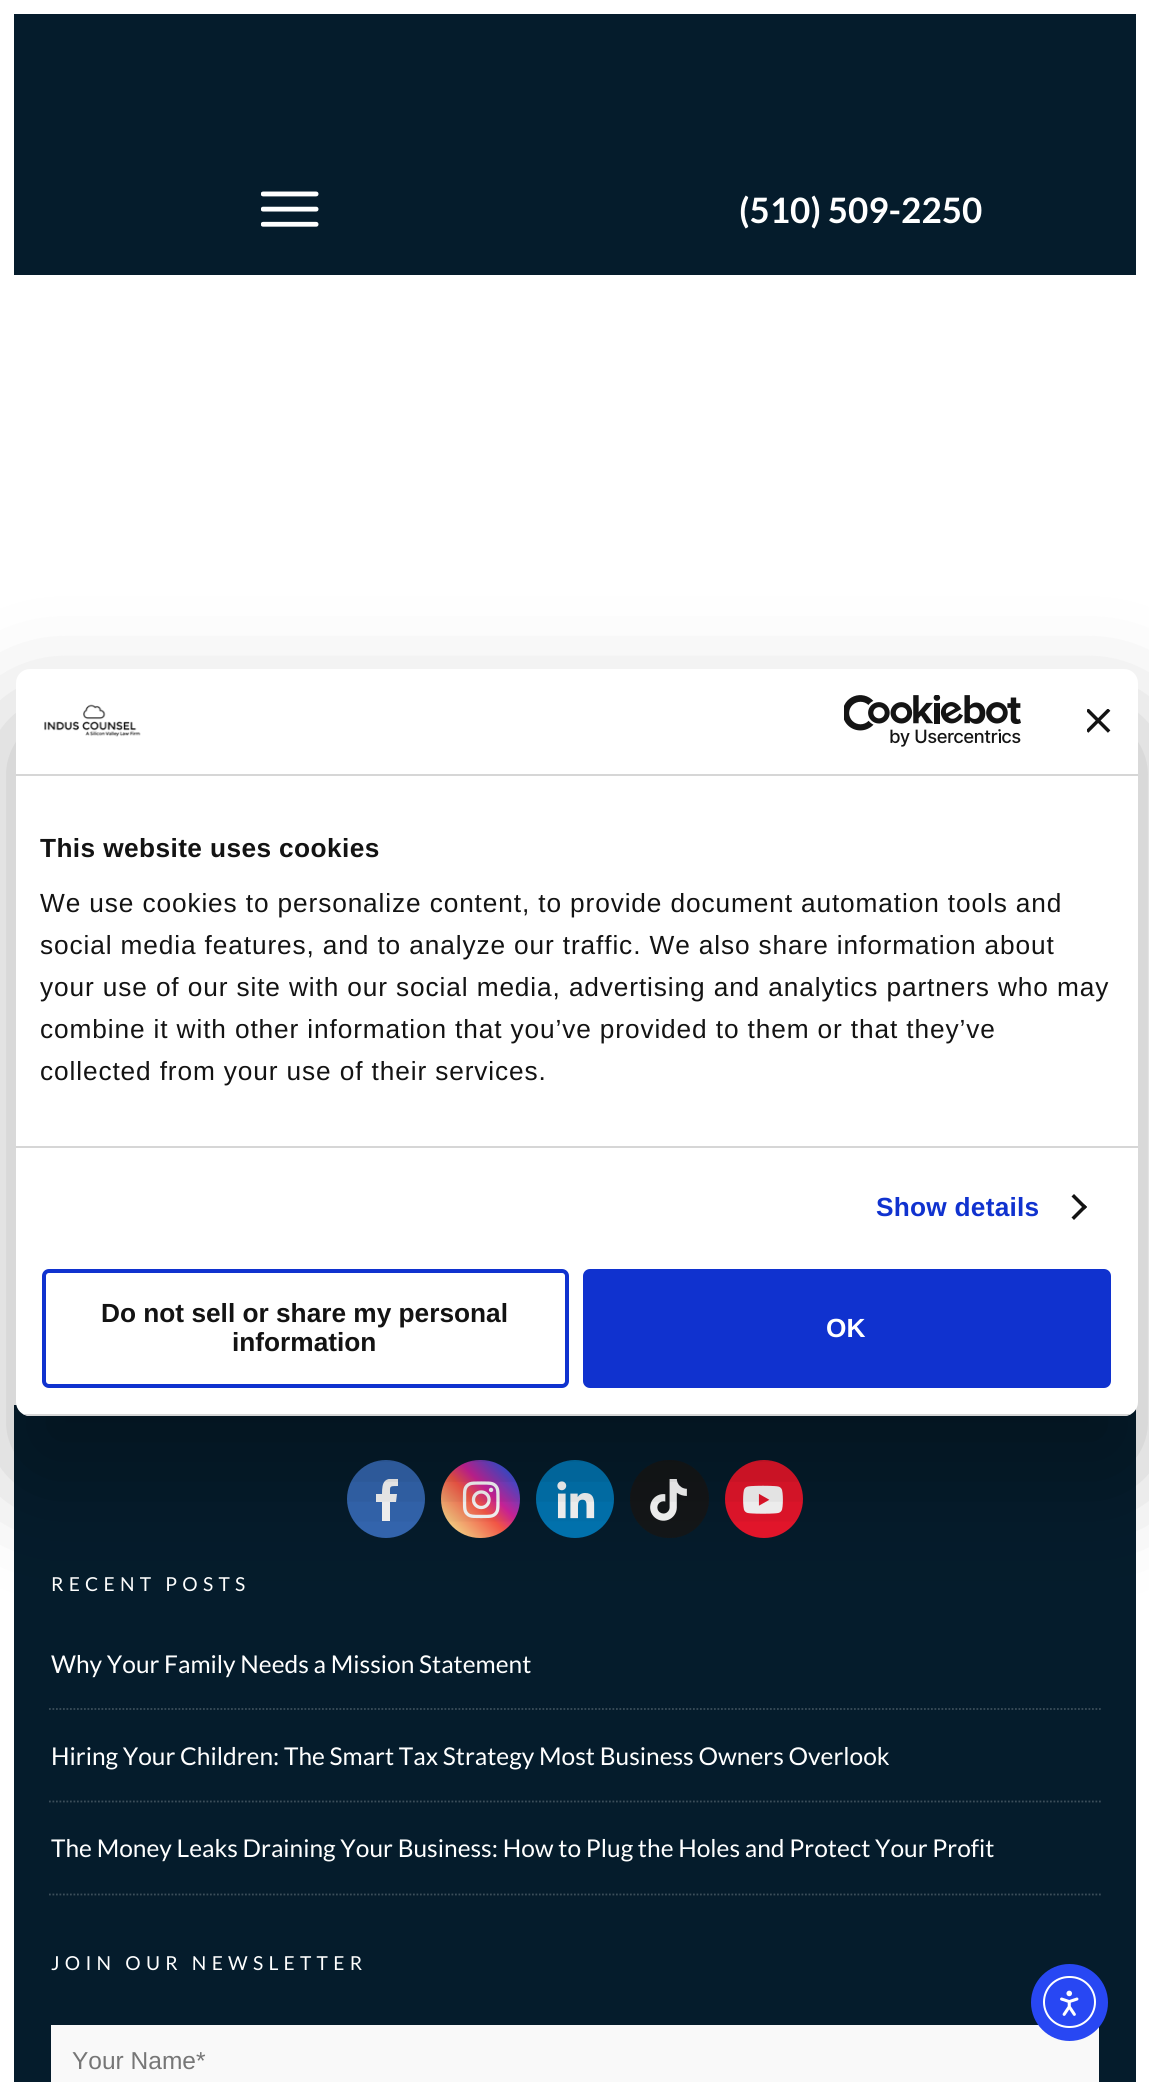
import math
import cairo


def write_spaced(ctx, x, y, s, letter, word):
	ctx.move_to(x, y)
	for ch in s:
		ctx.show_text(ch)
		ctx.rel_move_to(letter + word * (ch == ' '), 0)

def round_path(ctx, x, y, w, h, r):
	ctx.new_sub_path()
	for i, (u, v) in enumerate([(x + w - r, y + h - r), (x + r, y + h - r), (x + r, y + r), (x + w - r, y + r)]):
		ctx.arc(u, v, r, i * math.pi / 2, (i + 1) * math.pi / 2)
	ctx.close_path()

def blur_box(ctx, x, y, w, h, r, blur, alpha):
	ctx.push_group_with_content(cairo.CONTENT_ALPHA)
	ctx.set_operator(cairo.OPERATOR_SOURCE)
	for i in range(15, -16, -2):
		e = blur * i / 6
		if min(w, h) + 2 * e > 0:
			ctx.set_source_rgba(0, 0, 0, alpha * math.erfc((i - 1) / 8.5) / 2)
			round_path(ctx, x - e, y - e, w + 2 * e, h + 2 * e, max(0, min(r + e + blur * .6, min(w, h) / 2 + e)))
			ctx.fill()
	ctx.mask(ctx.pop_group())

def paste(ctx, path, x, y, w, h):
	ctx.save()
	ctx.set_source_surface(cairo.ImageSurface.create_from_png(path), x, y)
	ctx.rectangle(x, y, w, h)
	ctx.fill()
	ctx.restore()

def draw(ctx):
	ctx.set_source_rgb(1, 1, 1)
	ctx.paint()
	ctx.set_source_rgb(0.02, 0.11, 0.173)
	ctx.rectangle(14, 14, 1122, 261)
	ctx.fill()
	paste(ctx, 'media/1.png', 261, 191, 58, 36)
	ctx.select_font_face('Lato', cairo.FONT_SLANT_NORMAL, cairo.FONT_WEIGHT_BOLD)
	ctx.set_font_size(35)
	ctx.set_source_rgb(1, 1, 1)
	ctx.move_to(739, 223)
	ctx.show_text('(510) 509-2250')
	ctx.set_source_rgb(0.02, 0.11, 0.173)
	ctx.rectangle(14, 1405, 1122, 677)
	ctx.fill()
	ctx.set_source_rgb(0.208, 0.412, 0.706)
	ctx.arc(386, 1499, 39, 0, 2 * math.pi)
	ctx.fill()
	ctx.save()
	ctx.rectangle(366, 1479, 42, 42)
	ctx.clip()
	ctx.set_source_rgb(1, 1, 1)
	ctx.new_path()
	ctx.move_to(382, 1521)
	ctx.line_to(382, 1502)
	ctx.line_to(376, 1502)
	ctx.line_to(376, 1494)
	ctx.line_to(382, 1494)
	ctx.curve_to(382, 1482, 384, 1477, 398, 1479)
	ctx.line_to(398, 1486)
	ctx.curve_to(389, 1486, 390, 1486, 390, 1494)
	ctx.line_to(397, 1494)
	ctx.line_to(396, 1502)
	ctx.line_to(390, 1502)
	ctx.line_to(390, 1521)
	ctx.fill()
	ctx.restore()
	gradient = cairo.LinearGradient(441, 1538, 520, 1460)
	gradient.add_color_stop_rgba(0, 0.992, 0.957, 0.592, 1)
	gradient.add_color_stop_rgba(0.05, 0.992, 0.957, 0.592, 1)
	gradient.add_color_stop_rgba(0.45, 0.992, 0.349, 0.286, 1)
	gradient.add_color_stop_rgba(0.6, 0.839, 0.141, 0.624, 1)
	gradient.add_color_stop_rgba(0.9, 0.157, 0.353, 0.922, 1)
	ctx.set_source(gradient)
	round_path(ctx, 441, 1460, 79, 78, 39)
	ctx.fill()
	paste(ctx, 'media/2.png', 462, 1481, 38, 38)
	ctx.set_source_rgb(0.004, 0.467, 0.71)
	ctx.arc(575, 1499, 39, 0, 2 * math.pi)
	ctx.fill()
	paste(ctx, 'media/3.png', 557, 1481, 38, 38)
	ctx.set_source_rgb(0.071, 0.098, 0.114)
	round_path(ctx, 630, 1460, 79, 78, 39)
	ctx.fill()
	ctx.set_source_rgba(0.09, 0.09, 0.086, 0.5)
	round_path(ctx, 630, 1460, 79, 78, 39)
	ctx.fill()
	paste(ctx, 'media/4.png', 650, 1479, 37, 42)
	ctx.set_source_rgb(0.925, 0.086, 0.173)
	ctx.arc(764, 1499, 39, 0, 2 * math.pi)
	ctx.fill()
	paste(ctx, 'media/5.png', 743, 1485, 40, 29)
	ctx.select_font_face('Lato')
	ctx.set_font_size(19.25)
	ctx.set_source_rgb(1, 1, 1)
	write_spaced(ctx, 51, 1591, 'RECENT POSTS', 5.25, 0)
	ctx.new_path()
	ctx.move_to(49, 1709)
	ctx.line_to(1101, 1709)
	ctx.set_source_rgb(0.235, 0.306, 0.353)
	ctx.set_line_width(1.8)
	ctx.set_dash([1.75, 1.75])
	ctx.stroke()
	ctx.set_font_size(24.5)
	ctx.set_source_rgb(1, 1, 1)
	ctx.move_to(51, 1673)
	ctx.show_text('Why Your Family Needs a Mission Statement')
	ctx.new_path()
	ctx.move_to(49, 1801.5)
	ctx.line_to(1101, 1801.5)
	ctx.set_source_rgb(0.235, 0.306, 0.353)
	ctx.stroke()
	ctx.set_source_rgb(1, 1, 1)
	ctx.move_to(51, 1765)
	ctx.show_text('Hiring Your Children: The Smart Tax Strategy Most Business Owners Overlook')
	ctx.new_path()
	ctx.move_to(49, 1894.5)
	ctx.line_to(1101, 1894.5)
	ctx.set_source_rgb(0.235, 0.306, 0.353)
	ctx.stroke()
	ctx.set_source_rgb(1, 1, 1)
	ctx.move_to(51, 1857)
	ctx.show_text('The Money Leaks Draining Your Business: How to Plug the Holes and Protect Your Profit')
	ctx.set_font_size(19.25)
	write_spaced(ctx, 51, 1970, 'JOIN OUR NEWSLETTER', 5.25, 0)
	ctx.set_source_rgb(0.973, 0.973, 0.973)
	ctx.rectangle(51, 2025, 1048, 57)
	ctx.fill()
	ctx.select_font_face('Liberation Sans')
	ctx.set_font_size(24.5)
	ctx.set_source_rgb(0.463, 0.463, 0.463)
	ctx.move_to(72, 2069)
	ctx.show_text('Your Name*')
	ctx.set_source_rgb(0, 0, 0)
	blur_box(ctx, 16, 725, 1122, 747, 14, 59.5, 0.3)
	ctx.set_source_rgb(1, 1, 1)
	round_path(ctx, 16, 669, 1122, 747, 14)
	ctx.fill()
	ctx.set_source_rgb(0.839, 0.839, 0.839)
	ctx.rectangle(16, 774, 1122, 2)
	ctx.fill()
	paste(ctx, 'media/6.png', 44, 704, 97, 33)
	paste(ctx, 'media/7.png', 844, 695, 177, 52)
	paste(ctx, 'media/8.png', 1087, 709, 24, 24)
	ctx.rectangle(16, 1146, 1122, 2)
	ctx.fill()
	ctx.select_font_face('Liberation Sans', cairo.FONT_SLANT_NORMAL, cairo.FONT_WEIGHT_BOLD)
	ctx.set_font_size(26.25)
	ctx.set_source_rgb(0.078, 0.078, 0.078)
	write_spaced(ctx, 40, 857, 'This website uses cookies', 0.4, 0)
	ctx.select_font_face('Liberation Sans')
	for x, y, s in [
		(40, 912, 'We use cookies to personalize content, to provide document automation tools and'),
		(40, 954, 'social media features, and to analyze our traffic. We also share information about'),
		(40, 996, 'your use of our site with our social media, advertising and analytics partners who may'),
		(40, 1038, 'combine it with other information that you’ve provided to them or that they’ve'),
		(40, 1080, 'collected from your use of their services.'),
	]:
		write_spaced(ctx, x, y, s, 0.88, 0)
	ctx.select_font_face('Liberation Sans', cairo.FONT_SLANT_NORMAL, cairo.FONT_WEIGHT_BOLD)
	ctx.set_source_rgb(0.063, 0.196, 0.812)
	write_spaced(ctx, 876, 1216, 'Show details', 0.25, 0)
	ctx.set_source_rgb(0.078, 0.078, 0.078)
	ctx.new_path()
	ctx.move_to(1074, 1194)
	ctx.line_to(1087, 1207)
	ctx.line_to(1084.5, 1209.5)
	ctx.line_to(1071.5, 1196.5)
	ctx.close_path()
	ctx.fill()
	ctx.new_path()
	ctx.move_to(1084.5, 1204.5)
	ctx.line_to(1087, 1207)
	ctx.line_to(1074, 1220)
	ctx.line_to(1071.5, 1217.5)
	ctx.close_path()
	ctx.fill()
	ctx.save()
	round_path(ctx, 16, 669, 1122, 747, 14)
	ctx.clip()
	ctx.set_source_rgb(0.839, 0.839, 0.839)
	ctx.rectangle(16, 1414, 1122, 2)
	ctx.fill()
	ctx.restore()
	round_path(ctx, 44, 1271, 523, 115, 5)
	ctx.set_source_rgb(0.063, 0.196, 0.812)
	ctx.set_line_width(4)
	ctx.set_dash([])
	ctx.stroke()
	ctx.set_source_rgb(0.078, 0.078, 0.078)
	ctx.move_to(101, 1322)
	ctx.show_text('Do not sell or share my personal')
	ctx.move_to(232, 1351)
	ctx.show_text('information')
	ctx.set_source_rgb(0.063, 0.196, 0.812)
	round_path(ctx, 585, 1271, 524, 115, 5)
	ctx.fill_preserve()
	ctx.stroke()
	ctx.set_source_rgb(1, 1, 1)
	ctx.move_to(826, 1337)
	ctx.show_text('OK')
	ctx.set_source_rgb(0.157, 0.278, 0.953)
	ctx.new_path()
	ctx.arc(1069.5, 2002.5, 38.5, 0, 2 * math.pi)
	ctx.fill()
	round_path(ctx, 1044, 1977, 51, 50, 25)
	ctx.set_source_rgb(1, 1, 1)
	ctx.set_line_width(2)
	ctx.stroke()
	paste(ctx, 'media/9.png', 1060, 1990, 19, 26)


surface = cairo.ImageSurface(cairo.FORMAT_RGB24, 1149, 2082)
ctx = cairo.Context(surface)
options = cairo.FontOptions()
options.set_hint_metrics(cairo.HINT_METRICS_OFF)
options.set_hint_style(cairo.HINT_STYLE_NONE)
ctx.set_font_options(options)
ctx.set_miter_limit(4)
draw(ctx)
surface.write_to_png('image.png')
